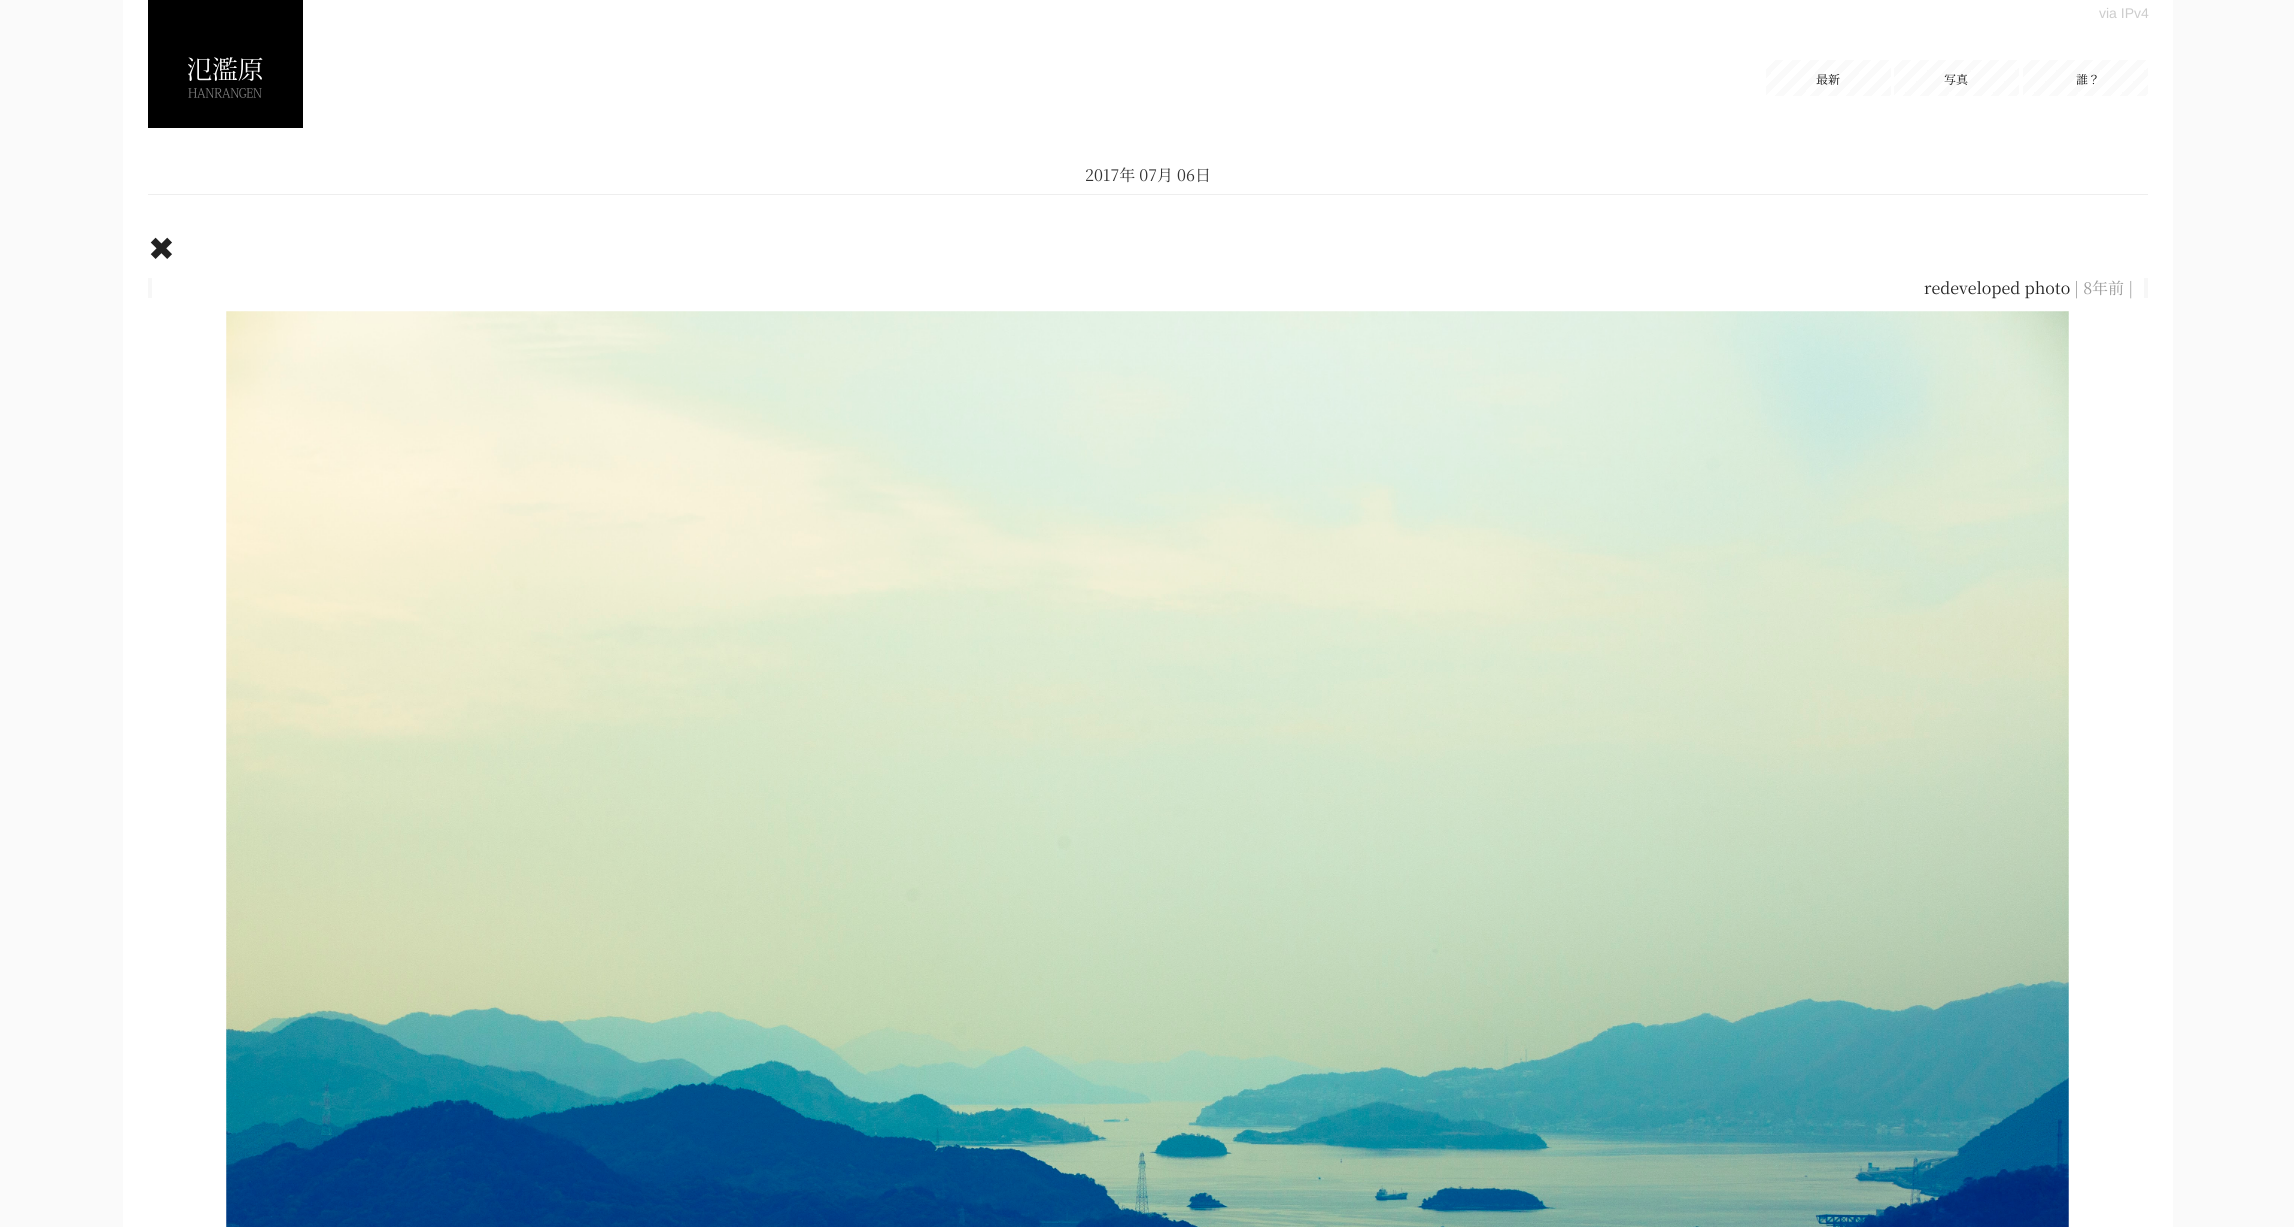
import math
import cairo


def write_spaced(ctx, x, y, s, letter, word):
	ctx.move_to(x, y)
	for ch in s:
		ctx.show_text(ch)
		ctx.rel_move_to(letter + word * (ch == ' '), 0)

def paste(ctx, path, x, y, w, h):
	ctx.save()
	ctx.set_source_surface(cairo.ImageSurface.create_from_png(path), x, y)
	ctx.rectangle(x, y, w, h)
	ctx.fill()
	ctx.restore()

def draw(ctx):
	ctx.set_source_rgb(0.98, 0.98, 0.98)
	ctx.paint()
	ctx.set_source_rgb(1, 1, 1)
	ctx.rectangle(123, 0, 2050, 1227)
	ctx.fill()
	ctx.set_source_rgb(0, 0, 0)
	ctx.rectangle(148, 0, 155, 128)
	ctx.fill()
	paste(ctx, 'media/1.png', 188, 57, 75, 41)
	ctx.select_font_face('Liberation Sans')
	ctx.set_font_size(14)
	ctx.set_source_rgb(0.8, 0.8, 0.8)
	ctx.move_to(2099, 18)
	ctx.show_text('via IPv4')
	gradient = cairo.LinearGradient(1788, 38, 1877, 126)
	gradient.add_color_stop_rgba(0, 1, 1, 1, 1)
	gradient.add_color_stop_rgba(0.05, 1, 1, 1, 1)
	gradient.add_color_stop_rgba(0.05, 0.98, 0.98, 0.98, 1)
	gradient.add_color_stop_rgba(0.1, 0.98, 0.98, 0.98, 1)
	gradient.add_color_stop_rgba(0.1, 1, 1, 1, 1)
	gradient.add_color_stop_rgba(0.15, 1, 1, 1, 1)
	gradient.add_color_stop_rgba(0.15, 0.98, 0.98, 0.98, 1)
	gradient.add_color_stop_rgba(0.2, 0.98, 0.98, 0.98, 1)
	gradient.add_color_stop_rgba(0.2, 1, 1, 1, 1)
	gradient.add_color_stop_rgba(0.25, 1, 1, 1, 1)
	gradient.add_color_stop_rgba(0.25, 0.98, 0.98, 0.98, 1)
	gradient.add_color_stop_rgba(0.3, 0.98, 0.98, 0.98, 1)
	gradient.add_color_stop_rgba(0.3, 1, 1, 1, 1)
	gradient.add_color_stop_rgba(0.35, 1, 1, 1, 1)
	gradient.add_color_stop_rgba(0.35, 0.98, 0.98, 0.98, 1)
	gradient.add_color_stop_rgba(0.4, 0.98, 0.98, 0.98, 1)
	gradient.add_color_stop_rgba(0.4, 1, 1, 1, 1)
	gradient.add_color_stop_rgba(0.45, 1, 1, 1, 1)
	gradient.add_color_stop_rgba(0.45, 0.98, 0.98, 0.98, 1)
	gradient.add_color_stop_rgba(0.5, 0.98, 0.98, 0.98, 1)
	gradient.add_color_stop_rgba(0.5, 1, 1, 1, 1)
	gradient.add_color_stop_rgba(0.55, 1, 1, 1, 1)
	gradient.add_color_stop_rgba(0.55, 0.98, 0.98, 0.98, 1)
	gradient.add_color_stop_rgba(0.6, 0.98, 0.98, 0.98, 1)
	gradient.add_color_stop_rgba(0.6, 1, 1, 1, 1)
	gradient.add_color_stop_rgba(0.65, 1, 1, 1, 1)
	gradient.add_color_stop_rgba(0.65, 0.98, 0.98, 0.98, 1)
	gradient.add_color_stop_rgba(0.7, 0.98, 0.98, 0.98, 1)
	gradient.add_color_stop_rgba(0.7, 1, 1, 1, 1)
	gradient.add_color_stop_rgba(0.75, 1, 1, 1, 1)
	gradient.add_color_stop_rgba(0.75, 0.98, 0.98, 0.98, 1)
	gradient.add_color_stop_rgba(0.8, 0.98, 0.98, 0.98, 1)
	gradient.add_color_stop_rgba(0.8, 1, 1, 1, 1)
	gradient.add_color_stop_rgba(0.85, 1, 1, 1, 1)
	gradient.add_color_stop_rgba(0.85, 0.98, 0.98, 0.98, 1)
	gradient.add_color_stop_rgba(0.9, 0.98, 0.98, 0.98, 1)
	gradient.add_color_stop_rgba(0.9, 1, 1, 1, 1)
	gradient.add_color_stop_rgba(0.95, 1, 1, 1, 1)
	gradient.add_color_stop_rgba(0.95, 0.98, 0.98, 0.98, 1)
	gradient.add_color_stop_rgba(1, 0.98, 0.98, 0.98, 1)
	ctx.set_source(gradient)
	ctx.rectangle(1766, 60, 125, 36)
	ctx.fill()
	ctx.select_font_face('Noto Serif JP')
	ctx.set_font_size(12)
	ctx.set_source_rgb(0.067, 0.067, 0.067)
	ctx.move_to(1816, 84)
	ctx.show_text('最新')
	gradient = cairo.LinearGradient(1916, 38, 2004, 126)
	gradient.add_color_stop_rgba(0, 1, 1, 1, 1)
	gradient.add_color_stop_rgba(0.05, 1, 1, 1, 1)
	gradient.add_color_stop_rgba(0.05, 0.98, 0.98, 0.98, 1)
	gradient.add_color_stop_rgba(0.1, 0.98, 0.98, 0.98, 1)
	gradient.add_color_stop_rgba(0.1, 1, 1, 1, 1)
	gradient.add_color_stop_rgba(0.15, 1, 1, 1, 1)
	gradient.add_color_stop_rgba(0.15, 0.98, 0.98, 0.98, 1)
	gradient.add_color_stop_rgba(0.2, 0.98, 0.98, 0.98, 1)
	gradient.add_color_stop_rgba(0.2, 1, 1, 1, 1)
	gradient.add_color_stop_rgba(0.25, 1, 1, 1, 1)
	gradient.add_color_stop_rgba(0.25, 0.98, 0.98, 0.98, 1)
	gradient.add_color_stop_rgba(0.3, 0.98, 0.98, 0.98, 1)
	gradient.add_color_stop_rgba(0.3, 1, 1, 1, 1)
	gradient.add_color_stop_rgba(0.35, 1, 1, 1, 1)
	gradient.add_color_stop_rgba(0.35, 0.98, 0.98, 0.98, 1)
	gradient.add_color_stop_rgba(0.4, 0.98, 0.98, 0.98, 1)
	gradient.add_color_stop_rgba(0.4, 1, 1, 1, 1)
	gradient.add_color_stop_rgba(0.45, 1, 1, 1, 1)
	gradient.add_color_stop_rgba(0.45, 0.98, 0.98, 0.98, 1)
	gradient.add_color_stop_rgba(0.5, 0.98, 0.98, 0.98, 1)
	gradient.add_color_stop_rgba(0.5, 1, 1, 1, 1)
	gradient.add_color_stop_rgba(0.55, 1, 1, 1, 1)
	gradient.add_color_stop_rgba(0.55, 0.98, 0.98, 0.98, 1)
	gradient.add_color_stop_rgba(0.6, 0.98, 0.98, 0.98, 1)
	gradient.add_color_stop_rgba(0.6, 1, 1, 1, 1)
	gradient.add_color_stop_rgba(0.65, 1, 1, 1, 1)
	gradient.add_color_stop_rgba(0.65, 0.98, 0.98, 0.98, 1)
	gradient.add_color_stop_rgba(0.7, 0.98, 0.98, 0.98, 1)
	gradient.add_color_stop_rgba(0.7, 1, 1, 1, 1)
	gradient.add_color_stop_rgba(0.75, 1, 1, 1, 1)
	gradient.add_color_stop_rgba(0.75, 0.98, 0.98, 0.98, 1)
	gradient.add_color_stop_rgba(0.8, 0.98, 0.98, 0.98, 1)
	gradient.add_color_stop_rgba(0.8, 1, 1, 1, 1)
	gradient.add_color_stop_rgba(0.85, 1, 1, 1, 1)
	gradient.add_color_stop_rgba(0.85, 0.98, 0.98, 0.98, 1)
	gradient.add_color_stop_rgba(0.9, 0.98, 0.98, 0.98, 1)
	gradient.add_color_stop_rgba(0.9, 1, 1, 1, 1)
	gradient.add_color_stop_rgba(0.95, 1, 1, 1, 1)
	gradient.add_color_stop_rgba(0.95, 0.98, 0.98, 0.98, 1)
	gradient.add_color_stop_rgba(1, 0.98, 0.98, 0.98, 1)
	ctx.set_source(gradient)
	ctx.rectangle(1894, 60, 125, 36)
	ctx.fill()
	ctx.set_source_rgb(0.067, 0.067, 0.067)
	ctx.move_to(1944, 84)
	ctx.show_text('写真')
	gradient = cairo.LinearGradient(2045, 38, 2133, 126)
	gradient.add_color_stop_rgba(0, 1, 1, 1, 1)
	gradient.add_color_stop_rgba(0.05, 1, 1, 1, 1)
	gradient.add_color_stop_rgba(0.05, 0.98, 0.98, 0.98, 1)
	gradient.add_color_stop_rgba(0.1, 0.98, 0.98, 0.98, 1)
	gradient.add_color_stop_rgba(0.1, 1, 1, 1, 1)
	gradient.add_color_stop_rgba(0.15, 1, 1, 1, 1)
	gradient.add_color_stop_rgba(0.15, 0.98, 0.98, 0.98, 1)
	gradient.add_color_stop_rgba(0.2, 0.98, 0.98, 0.98, 1)
	gradient.add_color_stop_rgba(0.2, 1, 1, 1, 1)
	gradient.add_color_stop_rgba(0.25, 1, 1, 1, 1)
	gradient.add_color_stop_rgba(0.25, 0.98, 0.98, 0.98, 1)
	gradient.add_color_stop_rgba(0.3, 0.98, 0.98, 0.98, 1)
	gradient.add_color_stop_rgba(0.3, 1, 1, 1, 1)
	gradient.add_color_stop_rgba(0.35, 1, 1, 1, 1)
	gradient.add_color_stop_rgba(0.35, 0.98, 0.98, 0.98, 1)
	gradient.add_color_stop_rgba(0.4, 0.98, 0.98, 0.98, 1)
	gradient.add_color_stop_rgba(0.4, 1, 1, 1, 1)
	gradient.add_color_stop_rgba(0.45, 1, 1, 1, 1)
	gradient.add_color_stop_rgba(0.45, 0.98, 0.98, 0.98, 1)
	gradient.add_color_stop_rgba(0.5, 0.98, 0.98, 0.98, 1)
	gradient.add_color_stop_rgba(0.5, 1, 1, 1, 1)
	gradient.add_color_stop_rgba(0.55, 1, 1, 1, 1)
	gradient.add_color_stop_rgba(0.55, 0.98, 0.98, 0.98, 1)
	gradient.add_color_stop_rgba(0.6, 0.98, 0.98, 0.98, 1)
	gradient.add_color_stop_rgba(0.6, 1, 1, 1, 1)
	gradient.add_color_stop_rgba(0.65, 1, 1, 1, 1)
	gradient.add_color_stop_rgba(0.65, 0.98, 0.98, 0.98, 1)
	gradient.add_color_stop_rgba(0.7, 0.98, 0.98, 0.98, 1)
	gradient.add_color_stop_rgba(0.7, 1, 1, 1, 1)
	gradient.add_color_stop_rgba(0.75, 1, 1, 1, 1)
	gradient.add_color_stop_rgba(0.75, 0.98, 0.98, 0.98, 1)
	gradient.add_color_stop_rgba(0.8, 0.98, 0.98, 0.98, 1)
	gradient.add_color_stop_rgba(0.8, 1, 1, 1, 1)
	gradient.add_color_stop_rgba(0.85, 1, 1, 1, 1)
	gradient.add_color_stop_rgba(0.85, 0.98, 0.98, 0.98, 1)
	gradient.add_color_stop_rgba(0.9, 0.98, 0.98, 0.98, 1)
	gradient.add_color_stop_rgba(0.9, 1, 1, 1, 1)
	gradient.add_color_stop_rgba(0.95, 1, 1, 1, 1)
	gradient.add_color_stop_rgba(0.95, 0.98, 0.98, 0.98, 1)
	gradient.add_color_stop_rgba(1, 0.98, 0.98, 0.98, 1)
	ctx.set_source(gradient)
	ctx.rectangle(2023, 60, 125, 36)
	ctx.fill()
	ctx.set_source_rgb(0.067, 0.067, 0.067)
	ctx.move_to(2076, 84)
	ctx.show_text('誰？')
	ctx.set_source_rgb(0.933, 0.933, 0.933)
	ctx.rectangle(148, 194, 2000, 1)
	ctx.fill()
	ctx.set_font_size(16)
	ctx.set_source_rgb(0.2, 0.2, 0.2)
	ctx.move_to(1085, 181)
	ctx.show_text('2017年 07月 06日')
	ctx.select_font_face('DejaVu Sans')
	ctx.set_font_size(32)
	ctx.set_source_rgb(0.133, 0.133, 0.133)
	write_spaced(ctx, 148, 260, '✖', -2, 0)
	ctx.set_source_rgb(0.965, 0.965, 0.965)
	ctx.rectangle(2144, 278, 4, 20)
	ctx.fill()
	ctx.rectangle(148, 278, 4, 20)
	ctx.fill()
	ctx.select_font_face('Noto Serif JP')
	ctx.set_font_size(16)
	ctx.set_source_rgb(0.133, 0.133, 0.133)
	ctx.move_to(1924, 294)
	ctx.show_text('redeveloped photo')
	ctx.set_source_rgb(0.6, 0.6, 0.6)
	ctx.move_to(2074, 294)
	ctx.show_text('| 8年前 |')
	paste(ctx, 'media/2.png', 226, 311, 1843, 916)


surface = cairo.ImageSurface(cairo.FORMAT_RGB24, 2294, 1227)
ctx = cairo.Context(surface)
options = cairo.FontOptions()
options.set_hint_metrics(cairo.HINT_METRICS_OFF)
options.set_hint_style(cairo.HINT_STYLE_NONE)
ctx.set_font_options(options)
ctx.set_miter_limit(4)
draw(ctx)
surface.write_to_png('image.png')
